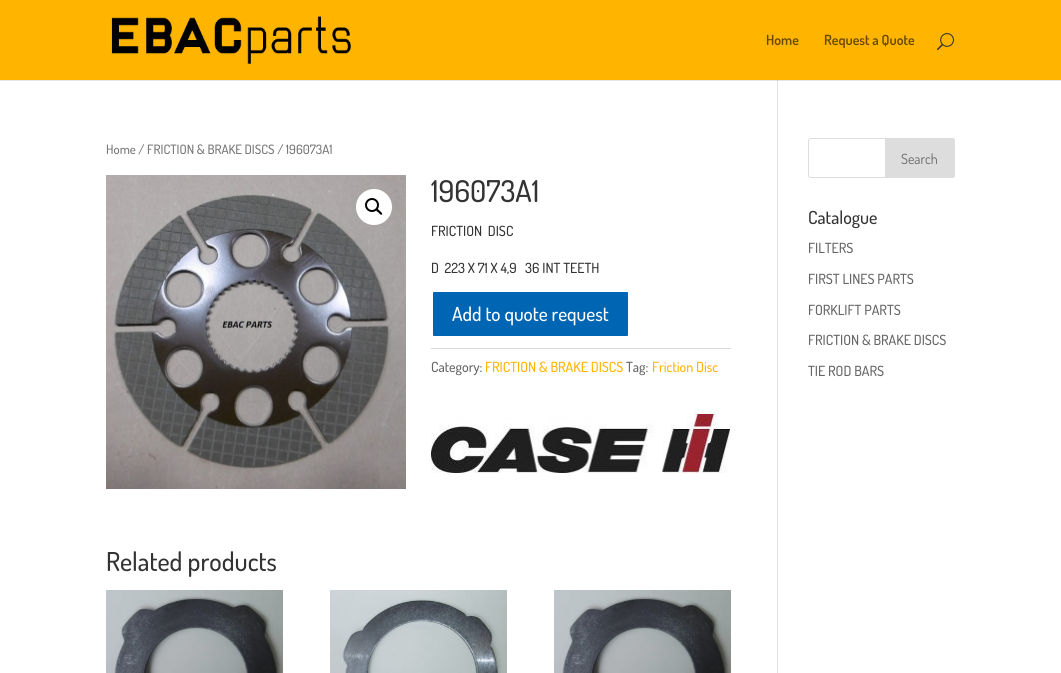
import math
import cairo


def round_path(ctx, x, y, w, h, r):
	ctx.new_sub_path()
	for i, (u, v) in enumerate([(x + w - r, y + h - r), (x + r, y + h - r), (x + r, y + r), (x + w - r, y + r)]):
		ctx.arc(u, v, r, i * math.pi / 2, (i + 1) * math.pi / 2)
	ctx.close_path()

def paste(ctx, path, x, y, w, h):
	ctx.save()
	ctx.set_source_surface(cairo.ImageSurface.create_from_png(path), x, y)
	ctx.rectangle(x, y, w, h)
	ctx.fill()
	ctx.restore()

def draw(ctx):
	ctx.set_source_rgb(1, 1, 1)
	ctx.paint()
	ctx.set_source_rgb(0.886, 0.886, 0.886)
	ctx.rectangle(777, 80, 1, 593)
	ctx.fill()
	ctx.set_source_rgba(0, 0, 0, 0.1)
	ctx.rectangle(0, 80, 1061, 1)
	ctx.fill()
	ctx.set_source_rgb(1, 0.706, 0)
	ctx.rectangle(0, 0, 1061, 80)
	ctx.fill()
	paste(ctx, 'media/1.png', 111, 16, 241, 48)
	ctx.select_font_face('Dosis SemiBold')
	ctx.set_font_size(14)
	ctx.set_source_rgb(0.4, 0.282, 0)
	ctx.move_to(766, 45)
	ctx.show_text('Home')
	ctx.move_to(824, 45)
	ctx.show_text('Request a Quote')
	paste(ctx, 'media/2.png', 937, 33, 17, 18)
	ctx.select_font_face('Dosis Medium')
	ctx.set_font_size(12.9)
	ctx.set_source_rgb(0.463, 0.463, 0.463)
	ctx.move_to(106, 154)
	ctx.show_text('Home / FRICTION & BRAKE DISCS / 196073A1')
	paste(ctx, 'media/3.png', 106, 175, 300, 314)
	ctx.set_source_rgb(1, 1, 1)
	ctx.arc(374, 207, 18, 0, 2 * math.pi)
	ctx.fill()
	ctx.arc(372, 205, 6, 0, 2 * math.pi)
	ctx.set_source_rgb(0, 0, 0)
	ctx.stroke()
	ctx.new_path()
	ctx.move_to(376, 209)
	ctx.curve_to(377.5, 207.5, 379, 210.5, 380, 211)
	ctx.curve_to(380.5, 211.5, 383, 213.5, 382, 214.5)
	ctx.curve_to(380.5, 215.5, 379, 213, 378.5, 212.5)
	ctx.curve_to(377.5, 212, 375, 210, 376, 209)
	ctx.close_path()
	ctx.fill()
	ctx.set_font_size(30)
	ctx.set_source_rgb(0.2, 0.2, 0.2)
	ctx.move_to(431, 202)
	ctx.show_text('196073A1')
	ctx.set_font_size(14)
	ctx.move_to(431, 236)
	ctx.show_text('FRICTION  DISC')
	ctx.move_to(431, 273)
	ctx.show_text('D  223 X 71 X 4,9   36 INT TEETH')
	ctx.set_source_rgb(0, 0.4, 0.706)
	round_path(ctx, 432, 291, 197, 46, 2)
	ctx.fill_preserve()
	ctx.set_source_rgb(1, 1, 1)
	ctx.stroke()
	ctx.set_font_size(19.25)
	ctx.move_to(452, 321)
	ctx.show_text('Add to quote request')
	ctx.set_source_rgb(0.855, 0.855, 0.855)
	ctx.rectangle(431, 348, 300, 1)
	ctx.fill()
	ctx.set_font_size(14)
	ctx.set_source_rgb(0.4, 0.4, 0.4)
	ctx.move_to(431, 372)
	ctx.show_text('Category:')
	ctx.set_source_rgb(1, 0.706, 0)
	ctx.move_to(485, 372)
	ctx.show_text('FRICTION & BRAKE DISCS')
	ctx.set_source_rgb(0.4, 0.4, 0.4)
	ctx.move_to(626, 372)
	ctx.show_text('Tag:')
	ctx.set_source_rgb(1, 0.706, 0)
	ctx.move_to(652, 372)
	ctx.show_text('Friction Disc')
	paste(ctx, 'media/4.png', 431, 409, 299, 64)
	ctx.set_font_size(26)
	ctx.set_source_rgb(0.2, 0.2, 0.2)
	ctx.move_to(106, 571)
	ctx.show_text('Related products')
	paste(ctx, 'media/5.png', 106, 590, 177, 83)
	paste(ctx, 'media/6.png', 330, 590, 177, 83)
	paste(ctx, 'media/5.png', 554, 590, 177, 83)
	round_path(ctx, 808.5, 138.5, 146, 39, 2.5)
	ctx.set_source_rgb(0.867, 0.867, 0.867)
	ctx.set_line_width(1)
	ctx.stroke()
	ctx.new_path()
	ctx.move_to(885.5, 138.5)
	ctx.line_to(952, 138.5)
	ctx.curve_to(953.5, 138.5, 954.5, 139.5, 954.5, 141)
	ctx.line_to(954.5, 175)
	ctx.curve_to(954.5, 176.5, 953.5, 177.5, 952, 177.5)
	ctx.line_to(885.5, 177.5)
	ctx.close_path()
	ctx.fill_preserve()
	ctx.stroke()
	ctx.select_font_face('Dosis')
	ctx.set_font_size(14)
	ctx.set_source_rgb(0.4, 0.4, 0.4)
	ctx.move_to(901, 164)
	ctx.show_text('Search')
	ctx.select_font_face('Dosis Medium')
	ctx.set_font_size(18)
	ctx.set_source_rgb(0.2, 0.2, 0.2)
	ctx.move_to(808, 224)
	ctx.show_text('Catalogue')
	ctx.set_font_size(14)
	ctx.set_source_rgb(0.4, 0.4, 0.4)
	for x, y, s in [
		(808, 253, 'FILTERS'),
		(808, 284, 'FIRST LINES PARTS'),
		(808, 315, 'FORKLIFT PARTS'),
		(808, 345, 'FRICTION & BRAKE DISCS'),
		(808, 376, 'TIE ROD BARS'),
	]:
		ctx.move_to(x, y)
		ctx.show_text(s)


surface = cairo.ImageSurface(cairo.FORMAT_RGB24, 1061, 673)
ctx = cairo.Context(surface)
options = cairo.FontOptions()
options.set_hint_metrics(cairo.HINT_METRICS_OFF)
options.set_hint_style(cairo.HINT_STYLE_NONE)
ctx.set_font_options(options)
ctx.set_miter_limit(4)
draw(ctx)
surface.write_to_png('image.png')
